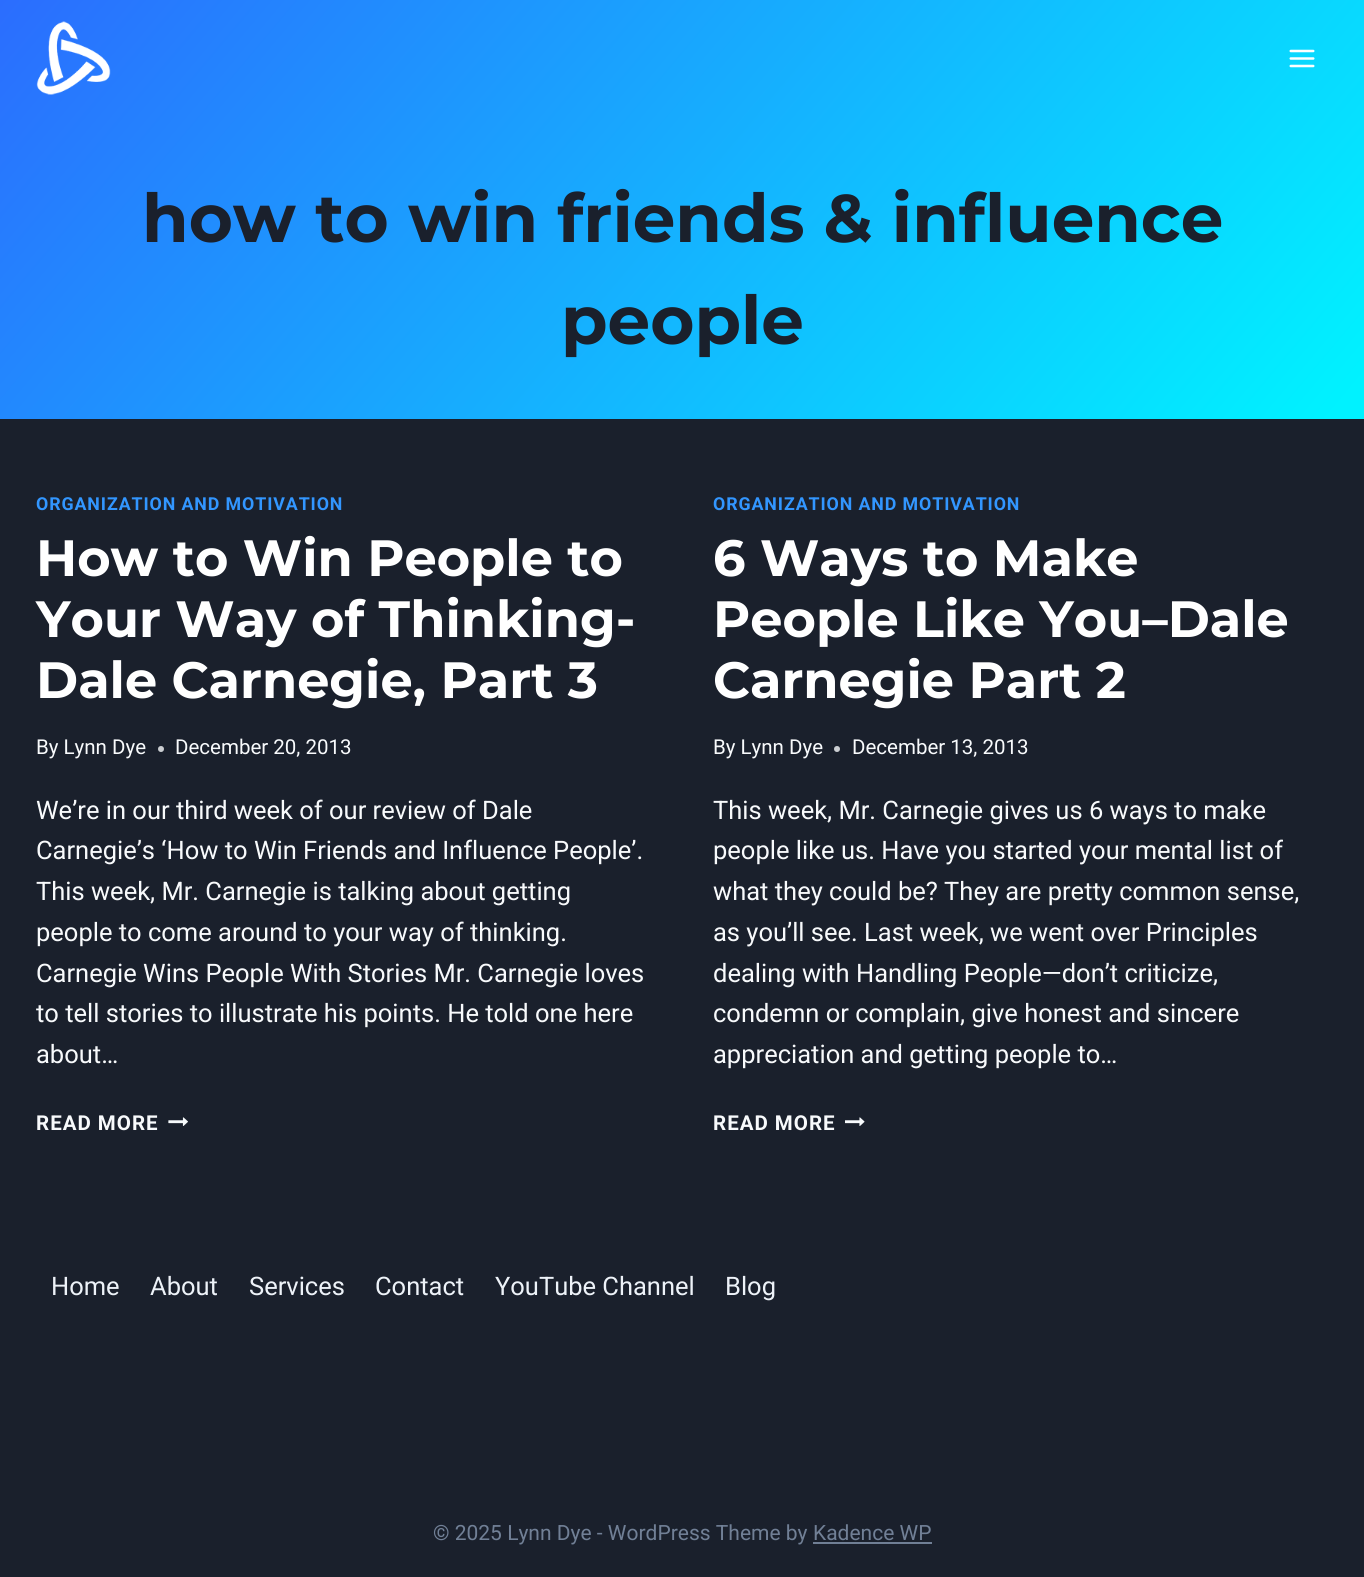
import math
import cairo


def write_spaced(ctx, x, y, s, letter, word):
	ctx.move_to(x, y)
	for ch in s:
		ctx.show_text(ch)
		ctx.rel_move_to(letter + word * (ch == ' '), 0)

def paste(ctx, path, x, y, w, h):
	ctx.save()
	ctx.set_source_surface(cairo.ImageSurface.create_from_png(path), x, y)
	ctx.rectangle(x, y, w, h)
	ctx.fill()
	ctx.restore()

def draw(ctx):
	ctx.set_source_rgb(0.102, 0.125, 0.173)
	ctx.paint()
	gradient = cairo.LinearGradient(179, -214, 1186, 631)
	gradient.add_color_stop_rgba(0, 0.169, 0.427, 0.996, 1)
	gradient.add_color_stop_rgba(0.98, 0, 0.949, 1, 1)
	ctx.set_source(gradient)
	ctx.rectangle(0, 0, 1364, 419)
	ctx.fill()
	paste(ctx, 'media/1.png', 36, 21, 75, 74)
	paste(ctx, 'media/2.png', 1289, 49, 26, 19)
	ctx.select_font_face('Montserrat', cairo.FONT_SLANT_NORMAL, cairo.FONT_WEIGHT_BOLD)
	ctx.set_font_size(67.5)
	ctx.set_source_rgb(0.102, 0.125, 0.173)
	ctx.move_to(142, 242)
	ctx.show_text('how to win friends & influence')
	ctx.move_to(561, 344)
	ctx.show_text('people')
	ctx.select_font_face('Roboto', cairo.FONT_SLANT_NORMAL, cairo.FONT_WEIGHT_BOLD)
	ctx.set_font_size(17.8)
	ctx.set_source_rgb(0.196, 0.588, 1)
	write_spaced(ctx, 36, 510, 'ORGANIZATION AND MOTIVATION', 0.9, 0)
	ctx.select_font_face('Montserrat', cairo.FONT_SLANT_NORMAL, cairo.FONT_WEIGHT_BOLD)
	ctx.set_font_size(51)
	ctx.set_source_rgb(1, 1, 1)
	for x, y, s in [
		(36, 576, 'How to Win People to'),
		(36, 637, 'Your Way of Thinking-'),
		(36, 698, 'Dale Carnegie, Part 3'),
	]:
		ctx.move_to(x, y)
		ctx.show_text(s)
	ctx.select_font_face('Roboto')
	ctx.set_font_size(20.5)
	ctx.set_source_rgb(0.969, 0.98, 0.988)
	ctx.move_to(36, 754)
	ctx.show_text('By Lynn Dye')
	ctx.set_source_rgb(0.796, 0.808, 0.824)
	ctx.new_path()
	ctx.arc(161, 749, 3, 0, 2 * math.pi)
	ctx.fill()
	ctx.set_source_rgb(0.969, 0.98, 0.988)
	ctx.move_to(175, 754)
	ctx.show_text('December 20, 2013')
	ctx.set_font_size(25.5)
	for x, y, s in [
		(36, 819, 'We’re in our third week of our review of Dale'),
		(36, 859, 'Carnegie’s ‘How to Win Friends and Influence People’.'),
		(36, 900, 'This week, Mr. Carnegie is talking about getting'),
		(36, 941, 'people to come around to your way of thinking.'),
		(36, 982, 'Carnegie Wins People With Stories Mr. Carnegie loves'),
		(36, 1022, 'to tell stories to illustrate his points. He told one here'),
		(36, 1063, 'about…'),
	]:
		ctx.move_to(x, y)
		ctx.show_text(s)
	ctx.select_font_face('Roboto', cairo.FONT_SLANT_NORMAL, cairo.FONT_WEIGHT_BOLD)
	ctx.set_font_size(20.5)
	write_spaced(ctx, 36, 1130, 'READ MORE', 1, 0)
	paste(ctx, 'media/3.png', 168, 1117, 20, 9)
	ctx.set_font_size(17.8)
	ctx.set_source_rgb(0.196, 0.588, 1)
	write_spaced(ctx, 713, 510, 'ORGANIZATION AND MOTIVATION', 0.9, 0)
	ctx.select_font_face('Montserrat', cairo.FONT_SLANT_NORMAL, cairo.FONT_WEIGHT_BOLD)
	ctx.set_font_size(51)
	ctx.set_source_rgb(1, 1, 1)
	for x, y, s in [
		(713, 576, '6 Ways to Make'),
		(713, 637, 'People Like You–Dale'),
		(713, 698, 'Carnegie Part 2'),
	]:
		ctx.move_to(x, y)
		ctx.show_text(s)
	ctx.select_font_face('Roboto')
	ctx.set_font_size(20.5)
	ctx.set_source_rgb(0.969, 0.98, 0.988)
	ctx.move_to(713, 754)
	ctx.show_text('By Lynn Dye')
	ctx.set_source_rgb(0.796, 0.808, 0.824)
	ctx.new_path()
	ctx.arc(837, 749, 3, 0, 2 * math.pi)
	ctx.fill()
	ctx.set_source_rgb(0.969, 0.98, 0.988)
	ctx.move_to(852, 754)
	ctx.show_text('December 13, 2013')
	ctx.set_font_size(25.5)
	for x, y, s in [
		(713, 819, 'This week, Mr. Carnegie gives us 6 ways to make'),
		(713, 859, 'people like us. Have you started your mental list of'),
		(713, 900, 'what they could be? They are pretty common sense,'),
		(713, 941, 'as you’ll see. Last week, we went over Principles'),
		(713, 982, 'dealing with Handling People—don’t criticize,'),
		(713, 1022, 'condemn or complain, give honest and sincere'),
		(713, 1063, 'appreciation and getting people to…'),
	]:
		ctx.move_to(x, y)
		ctx.show_text(s)
	ctx.select_font_face('Roboto', cairo.FONT_SLANT_NORMAL, cairo.FONT_WEIGHT_BOLD)
	ctx.set_font_size(20.5)
	write_spaced(ctx, 713, 1130, 'READ MORE', 1, 0)
	paste(ctx, 'media/4.png', 845, 1117, 20, 9)
	ctx.select_font_face('Roboto')
	ctx.set_font_size(25.5)
	ctx.set_source_rgb(0.929, 0.949, 0.969)
	for x, y, s in [
		(51, 1295, 'Home'),
		(150, 1295, 'About'),
		(249, 1295, 'Services'),
		(375, 1295, 'Contact'),
		(495, 1295, 'YouTube Channel'),
		(725, 1295, 'Blog'),
	]:
		ctx.move_to(x, y)
		ctx.show_text(s)
	ctx.set_font_size(21)
	ctx.set_source_rgb(0.443, 0.502, 0.588)
	ctx.move_to(433, 1540)
	ctx.show_text('© 2025 Lynn Dye - WordPress Theme by')
	ctx.move_to(813, 1540)
	ctx.show_text('Kadence WP')
	ctx.set_source_rgb(0.439, 0.498, 0.584)
	ctx.rectangle(813, 1542, 119, 2)
	ctx.fill()


surface = cairo.ImageSurface(cairo.FORMAT_RGB24, 1364, 1577)
ctx = cairo.Context(surface)
options = cairo.FontOptions()
options.set_hint_metrics(cairo.HINT_METRICS_OFF)
options.set_hint_style(cairo.HINT_STYLE_NONE)
ctx.set_font_options(options)
ctx.set_miter_limit(4)
draw(ctx)
surface.write_to_png('image.png')
